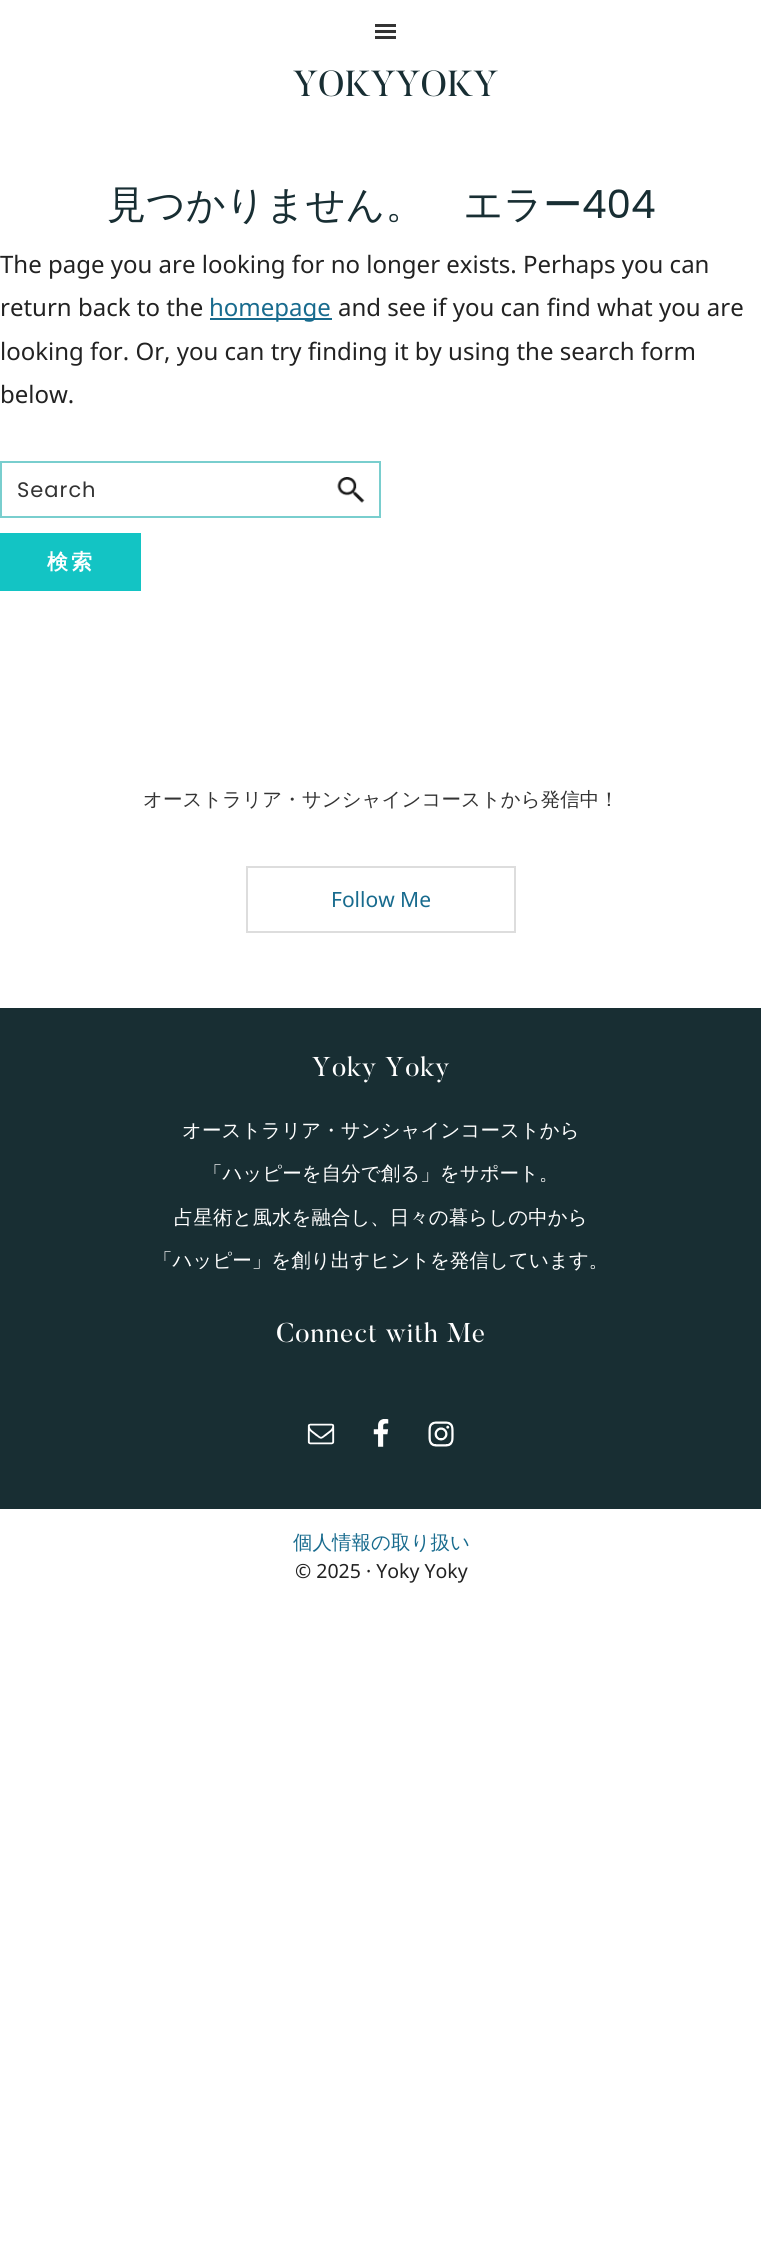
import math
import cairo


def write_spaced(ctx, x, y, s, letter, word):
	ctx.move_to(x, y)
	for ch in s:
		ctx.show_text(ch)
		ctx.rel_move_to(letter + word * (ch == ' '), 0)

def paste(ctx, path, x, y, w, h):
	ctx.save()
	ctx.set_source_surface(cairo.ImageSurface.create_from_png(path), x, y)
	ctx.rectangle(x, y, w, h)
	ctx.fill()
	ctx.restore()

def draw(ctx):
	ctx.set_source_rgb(1, 1, 1)
	ctx.paint()
	paste(ctx, 'media/1.png', 375, 24, 21, 15)
	ctx.select_font_face('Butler')
	ctx.set_font_size(36)
	ctx.set_source_rgb(0.094, 0.18, 0.2)
	ctx.move_to(293, 96)
	ctx.show_text('YOKYYOKY')
	ctx.select_font_face('WenQuanYi Zen Hei Medium')
	ctx.set_font_size(39)
	ctx.move_to(107, 218)
	ctx.show_text('見つかりません。　エラー')
	ctx.select_font_face('Poppins')
	ctx.move_to(582, 218)
	ctx.show_text('404')
	ctx.select_font_face('Noto Sans')
	ctx.set_font_size(24)
	ctx.set_source_rgb(0.133, 0.133, 0.133)
	ctx.move_to(0, 273)
	ctx.show_text('The page you are looking for no longer exists. Perhaps you can')
	ctx.move_to(0, 316)
	ctx.show_text('return back to the')
	ctx.set_source_rgb(0.094, 0.42, 0.557)
	ctx.rectangle(210, 318, 122, 2)
	ctx.fill()
	ctx.move_to(209, 316)
	ctx.show_text('homepage')
	ctx.set_source_rgb(0.133, 0.133, 0.133)
	for x, y, s in [
		(338, 316, 'and see if you can find what you are'),
		(0, 360, 'looking for. Or, you can try finding it by using the search form'),
		(0, 403, 'below.'),
	]:
		ctx.move_to(x, y)
		ctx.show_text(s)
	paste(ctx, 'media/2.png', 337, 477, 28, 26)
	ctx.rectangle(1, 462, 379, 55)
	ctx.set_source_rgb(0.475, 0.808, 0.808)
	ctx.stroke()
	ctx.select_font_face('Poppins')
	ctx.set_font_size(21)
	ctx.set_source_rgb(0.2, 0.2, 0.2)
	write_spaced(ctx, 17, 497, 'Search', 1, 0)
	ctx.set_source_rgb(0.075, 0.769, 0.769)
	ctx.rectangle(0, 533, 141, 58)
	ctx.fill()
	ctx.select_font_face('WenQuanYi Zen Hei', cairo.FONT_SLANT_NORMAL, cairo.FONT_WEIGHT_BOLD)
	ctx.set_source_rgb(1, 1, 1)
	write_spaced(ctx, 47, 569, '検索', 3, 0)
	ctx.select_font_face('WenQuanYi Zen Hei Medium')
	ctx.set_font_size(19.5)
	ctx.set_source_rgb(0.2, 0.2, 0.2)
	ctx.move_to(143, 806)
	ctx.show_text('オーストラリア・サンシャインコーストから発信中！')
	ctx.rectangle(247, 867, 268, 65)
	ctx.set_source_rgb(0.867, 0.867, 0.867)
	ctx.stroke()
	ctx.select_font_face('Noto Sans')
	ctx.set_font_size(21)
	ctx.set_source_rgb(0.094, 0.42, 0.557)
	ctx.move_to(331, 907)
	ctx.show_text('Follow Me')
	ctx.set_source_rgb(0.094, 0.18, 0.2)
	ctx.rectangle(0, 1008, 761, 501)
	ctx.fill()
	ctx.select_font_face('Butler')
	ctx.set_font_size(27)
	ctx.set_source_rgb(1, 1, 1)
	write_spaced(ctx, 312, 1076, 'Yoky Yoky', 1, 0)
	ctx.select_font_face('WenQuanYi Zen Hei Medium')
	ctx.set_font_size(19.5)
	for x, y, s in [
		(182, 1137, 'オーストラリア・サンシャインコーストから'),
		(203, 1180, '「ハッピーを自分で創る」をサポート。'),
		(174, 1224, '占星術と風水を融合し、日々の暮らしの中から'),
		(153, 1267, '「ハッピー」を創り出すヒントを発信しています。'),
	]:
		ctx.move_to(x, y)
		ctx.show_text(s)
	ctx.select_font_face('Butler')
	ctx.set_font_size(27)
	write_spaced(ctx, 276, 1342, 'Connect with Me', 1, 0)
	paste(ctx, 'media/3.png', 307, 1423, 28, 22)
	paste(ctx, 'media/4.png', 373, 1419, 16, 28)
	paste(ctx, 'media/5.png', 428, 1421, 26, 26)
	ctx.select_font_face('WenQuanYi Zen Hei Medium')
	ctx.set_font_size(19.5)
	ctx.set_source_rgb(0.094, 0.42, 0.557)
	ctx.move_to(293, 1549)
	ctx.show_text('個人情報の取り扱い')
	ctx.select_font_face('Noto Sans')
	ctx.set_source_rgb(0.133, 0.133, 0.133)
	ctx.move_to(295, 1578)
	ctx.show_text('© 2025 · Yoky Yoky')


surface = cairo.ImageSurface(cairo.FORMAT_RGB24, 761, 2266)
ctx = cairo.Context(surface)
options = cairo.FontOptions()
options.set_hint_metrics(cairo.HINT_METRICS_OFF)
options.set_hint_style(cairo.HINT_STYLE_NONE)
ctx.set_font_options(options)
ctx.set_miter_limit(4)
draw(ctx)
surface.write_to_png('image.png')
